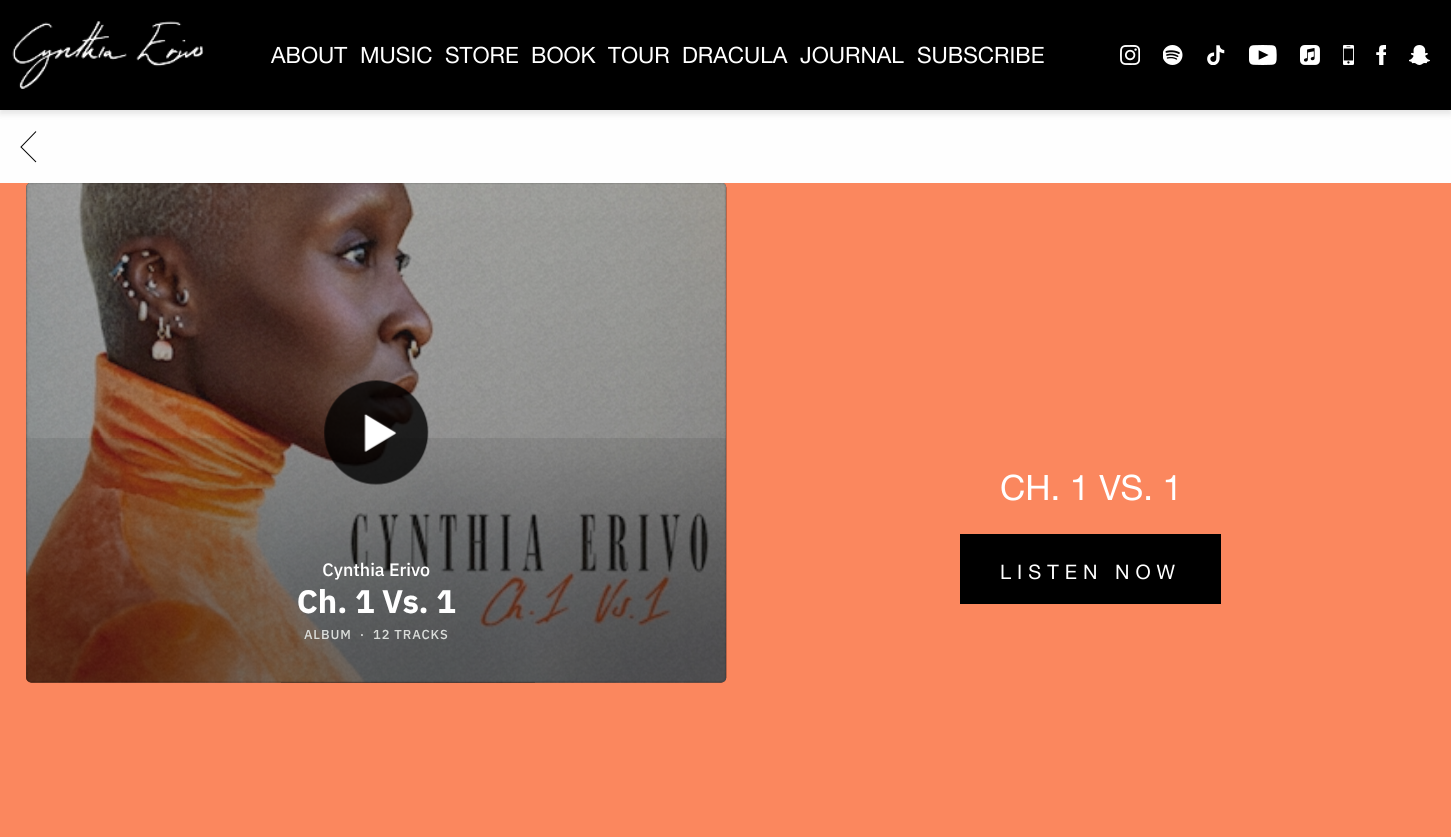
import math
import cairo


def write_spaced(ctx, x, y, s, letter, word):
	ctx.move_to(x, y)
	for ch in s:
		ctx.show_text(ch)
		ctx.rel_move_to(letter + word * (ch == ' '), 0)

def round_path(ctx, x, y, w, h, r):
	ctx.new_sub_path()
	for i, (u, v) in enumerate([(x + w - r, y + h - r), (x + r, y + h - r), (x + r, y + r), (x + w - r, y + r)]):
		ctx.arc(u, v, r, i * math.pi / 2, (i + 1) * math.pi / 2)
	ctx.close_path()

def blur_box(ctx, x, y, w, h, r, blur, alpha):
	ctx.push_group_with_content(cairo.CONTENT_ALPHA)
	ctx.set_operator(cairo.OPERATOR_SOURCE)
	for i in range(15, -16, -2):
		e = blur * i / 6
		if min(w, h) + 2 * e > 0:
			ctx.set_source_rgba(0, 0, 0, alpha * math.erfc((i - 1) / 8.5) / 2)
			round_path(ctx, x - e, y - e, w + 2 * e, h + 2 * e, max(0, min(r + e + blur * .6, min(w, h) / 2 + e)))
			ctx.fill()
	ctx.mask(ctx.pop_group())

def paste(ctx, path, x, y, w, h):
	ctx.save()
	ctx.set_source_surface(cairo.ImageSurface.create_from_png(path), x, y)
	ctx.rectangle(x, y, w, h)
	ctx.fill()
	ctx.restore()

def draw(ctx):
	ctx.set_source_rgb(0.984, 0.529, 0.369)
	ctx.paint()
	ctx.set_source_rgb(0.996, 0.996, 0.996)
	ctx.rectangle(0, 110, 1451, 73)
	ctx.fill()
	ctx.set_source_rgb(0, 0, 0)
	blur_box(ctx, 0, 4, 1451, 110, 0, 3, 0.1)
	ctx.set_source_rgb(0, 0, 0)
	ctx.rectangle(0, 0, 1451, 110)
	ctx.fill()
	paste(ctx, 'media/1.png', 12, 21, 192, 68)
	ctx.select_font_face('Helvetica Neue')
	ctx.set_font_size(22.5)
	ctx.set_source_rgb(1, 1, 1)
	for x, y, s in [
		(271, 63, 'ABOUT'),
		(360, 63, 'MUSIC'),
		(445, 63, 'STORE'),
		(531, 63, 'BOOK'),
		(608, 63, 'TOUR'),
		(682, 63, 'DRACULA'),
		(800, 63, 'JOURNAL'),
		(917, 63, 'SUBSCRIBE'),
	]:
		ctx.move_to(x, y)
		ctx.show_text(s)
	paste(ctx, 'media/2.png', 1120, 45, 20, 20)
	paste(ctx, 'media/3.png', 1163, 45, 20, 20)
	paste(ctx, 'media/4.png', 1207, 45, 18, 20)
	paste(ctx, 'media/5.png', 1249, 45, 28, 20)
	paste(ctx, 'media/6.png', 1300, 45, 20, 20)
	paste(ctx, 'media/7.png', 1343, 45, 11, 20)
	paste(ctx, 'media/8.png', 1376, 45, 10, 20)
	paste(ctx, 'media/9.png', 1409, 45, 21, 20)
	ctx.new_path()
	ctx.move_to(36, 162)
	ctx.line_to(21, 147)
	ctx.line_to(36, 131.5)
	ctx.set_source_rgb(0, 0, 0)
	ctx.set_line_width(1)
	ctx.stroke()
	paste(ctx, 'media/10.png', 26, 183, 701, 500)
	ctx.set_font_size(35)
	ctx.set_source_rgb(1, 1, 1)
	ctx.move_to(1000, 500)
	ctx.show_text('CH. 1 VS. 1')
	ctx.set_source_rgb(0, 0, 0)
	ctx.rectangle(960, 534, 261, 70)
	ctx.fill()
	ctx.set_font_size(20)
	ctx.set_source_rgb(1, 1, 1)
	write_spaced(ctx, 1000, 579, 'LISTEN NOW', 6, 0)


surface = cairo.ImageSurface(cairo.FORMAT_RGB24, 1451, 837)
ctx = cairo.Context(surface)
options = cairo.FontOptions()
options.set_hint_metrics(cairo.HINT_METRICS_OFF)
options.set_hint_style(cairo.HINT_STYLE_NONE)
ctx.set_font_options(options)
ctx.set_miter_limit(4)
draw(ctx)
surface.write_to_png('image.png')
